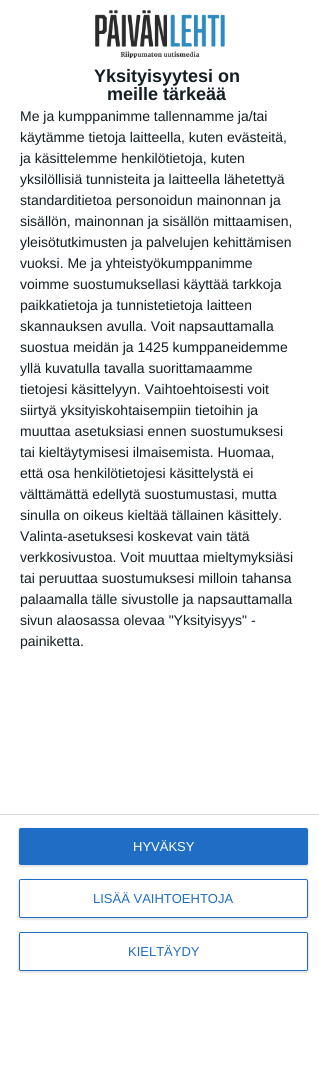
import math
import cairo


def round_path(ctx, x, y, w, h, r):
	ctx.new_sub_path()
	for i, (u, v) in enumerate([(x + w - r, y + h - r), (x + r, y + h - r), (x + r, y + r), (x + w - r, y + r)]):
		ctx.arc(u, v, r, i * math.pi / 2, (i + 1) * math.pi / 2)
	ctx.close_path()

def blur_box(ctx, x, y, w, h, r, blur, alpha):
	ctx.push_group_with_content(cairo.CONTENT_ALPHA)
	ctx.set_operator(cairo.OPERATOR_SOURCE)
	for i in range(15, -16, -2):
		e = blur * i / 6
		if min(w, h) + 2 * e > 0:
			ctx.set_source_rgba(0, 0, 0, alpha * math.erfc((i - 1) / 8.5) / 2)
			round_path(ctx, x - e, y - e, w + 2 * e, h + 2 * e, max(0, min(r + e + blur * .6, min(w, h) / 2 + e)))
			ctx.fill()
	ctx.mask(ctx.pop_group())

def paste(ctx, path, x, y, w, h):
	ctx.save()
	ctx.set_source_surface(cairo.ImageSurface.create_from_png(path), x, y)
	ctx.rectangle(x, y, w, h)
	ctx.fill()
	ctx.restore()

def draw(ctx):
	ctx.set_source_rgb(1, 1, 1)
	ctx.paint()
	paste(ctx, 'media/1.png', 95, 10, 130, 48)
	ctx.select_font_face('Liberation Sans', cairo.FONT_SLANT_NORMAL, cairo.FONT_WEIGHT_BOLD)
	ctx.set_font_size(18)
	ctx.set_source_rgb(0.078, 0.118, 0.137)
	ctx.move_to(94, 82)
	ctx.show_text('Yksityisyytesi on')
	ctx.move_to(107, 100)
	ctx.show_text('meille tärkeää')
	ctx.select_font_face('Liberation Sans')
	ctx.set_font_size(14)
	for x, y, s in [
		(20, 121, 'Me ja kumppanimme tallennamme ja/tai'),
		(20, 142, 'käytämme tietoja laitteella, kuten evästeitä,'),
		(20, 163, 'ja käsittelemme henkilötietoja, kuten'),
		(20, 184, 'yksilöllisiä tunnisteita ja laitteella lähetettyä'),
		(20, 205, 'standarditietoa personoidun mainonnan ja'),
		(20, 226, 'sisällön, mainonnan ja sisällön mittaamisen,'),
		(20, 247, 'yleisötutkimusten ja palvelujen kehittämisen'),
		(20, 268, 'vuoksi. Me ja yhteistyökumppanimme'),
		(20, 289, 'voimme suostumuksellasi käyttää tarkkoja'),
		(20, 310, 'paikkatietoja ja tunnistetietoja laitteen'),
		(20, 331, 'skannauksen avulla. Voit napsauttamalla'),
		(20, 352, 'suostua meidän ja 1425 kumppaneidemme'),
		(20, 373, 'yllä kuvatulla tavalla suorittamaamme'),
		(20, 394, 'tietojesi käsittelyyn. Vaihtoehtoisesti voit'),
		(20, 415, 'siirtyä yksityiskohtaisempiin tietoihin ja'),
		(20, 436, 'muuttaa asetuksiasi ennen suostumuksesi'),
		(20, 457, 'tai kieltäytymisesi ilmaisemista. Huomaa,'),
		(20, 478, 'että osa henkilötietojesi käsittelystä ei'),
		(20, 499, 'välttämättä edellytä suostumustasi, mutta'),
		(20, 520, 'sinulla on oikeus kieltää tällainen käsittely.'),
		(20, 541, 'Valinta-asetuksesi koskevat vain tätä'),
		(20, 562, 'verkkosivustoa. Voit muuttaa mieltymyksiäsi'),
		(20, 583, 'tai peruuttaa suostumuksesi milloin tahansa'),
		(20, 604, 'palaamalla tälle sivustolle ja napsauttamalla'),
		(20, 625, 'sivun alaosassa olevaa "Yksityisyys" -'),
		(20, 646, 'painiketta.'),
	]:
		ctx.move_to(x, y)
		ctx.show_text(s)
	ctx.set_source_rgb(0.847, 0.847, 0.847)
	ctx.rectangle(0, 814, 319, 1)
	ctx.fill()
	ctx.set_source_rgb(0, 0, 0)
	blur_box(ctx, 18, 828, 291, 39, 3, 0.5, 0.1)
	ctx.set_source_rgb(0.125, 0.427, 0.773)
	round_path(ctx, 19, 828, 289, 37, 2)
	ctx.fill()
	ctx.set_font_size(13)
	ctx.set_source_rgb(1, 1, 1)
	ctx.move_to(133, 851)
	ctx.show_text('HYVÄKSY')
	ctx.set_source_rgb(0, 0, 0)
	blur_box(ctx, 18, 879, 291, 41, 3, 0.5, 0.1)
	ctx.set_source_rgb(1, 1, 1)
	round_path(ctx, 19.5, 879.5, 288, 38, 1.5)
	ctx.fill_preserve()
	ctx.set_source_rgb(0.125, 0.427, 0.773)
	ctx.set_line_width(1)
	ctx.stroke()
	ctx.move_to(93, 903)
	ctx.show_text('LISÄÄ VAIHTOEHTOJA')
	ctx.set_source_rgb(0, 0, 0)
	blur_box(ctx, 18, 932, 291, 41, 3, 0.5, 0.1)
	ctx.set_source_rgb(1, 1, 1)
	round_path(ctx, 19.5, 932.5, 288, 38, 1.5)
	ctx.fill_preserve()
	ctx.set_source_rgb(0.125, 0.427, 0.773)
	ctx.stroke()
	ctx.move_to(128, 956)
	ctx.show_text('KIELTÄYDY')


surface = cairo.ImageSurface(cairo.FORMAT_RGB24, 319, 1080)
ctx = cairo.Context(surface)
options = cairo.FontOptions()
options.set_hint_metrics(cairo.HINT_METRICS_OFF)
options.set_hint_style(cairo.HINT_STYLE_NONE)
ctx.set_font_options(options)
ctx.set_miter_limit(4)
draw(ctx)
surface.write_to_png('image.png')
